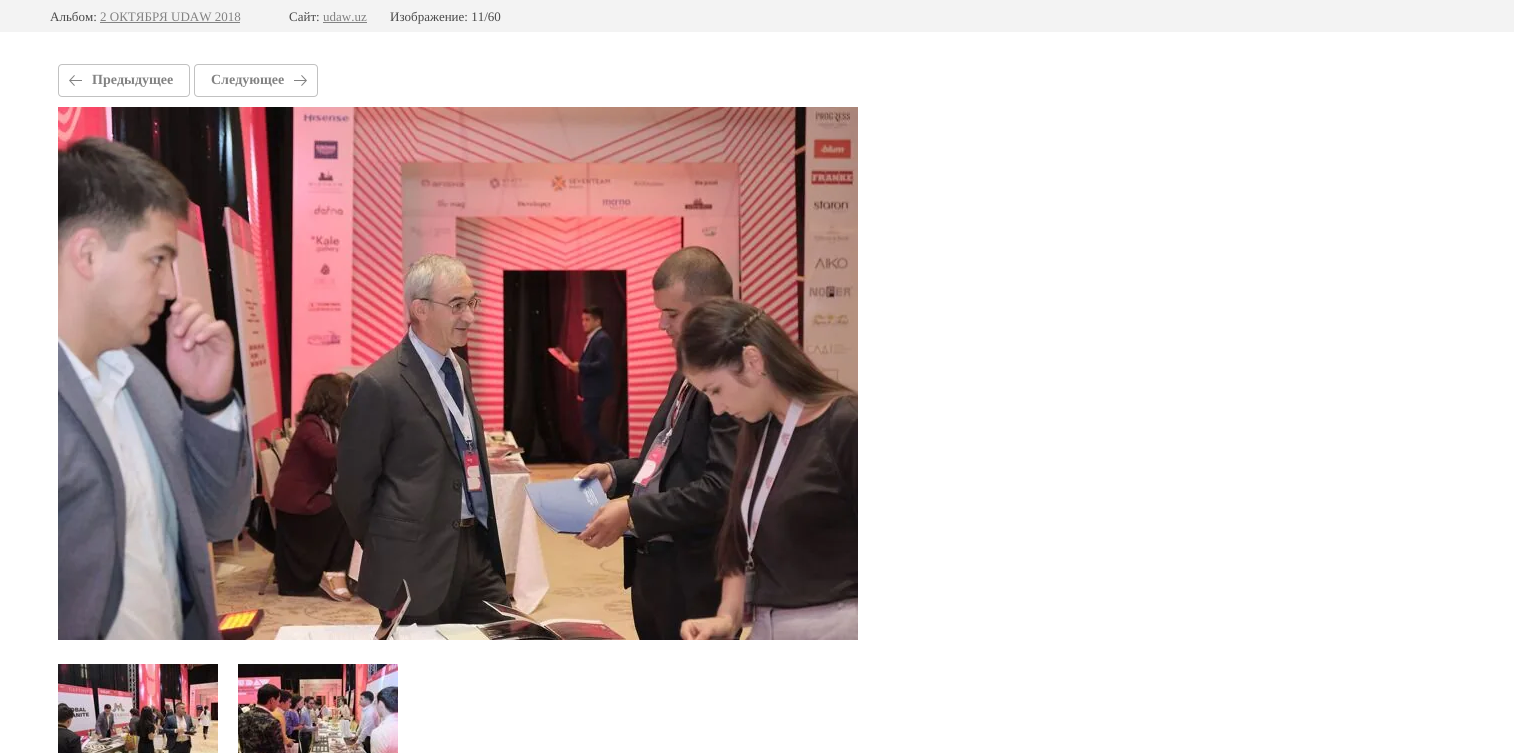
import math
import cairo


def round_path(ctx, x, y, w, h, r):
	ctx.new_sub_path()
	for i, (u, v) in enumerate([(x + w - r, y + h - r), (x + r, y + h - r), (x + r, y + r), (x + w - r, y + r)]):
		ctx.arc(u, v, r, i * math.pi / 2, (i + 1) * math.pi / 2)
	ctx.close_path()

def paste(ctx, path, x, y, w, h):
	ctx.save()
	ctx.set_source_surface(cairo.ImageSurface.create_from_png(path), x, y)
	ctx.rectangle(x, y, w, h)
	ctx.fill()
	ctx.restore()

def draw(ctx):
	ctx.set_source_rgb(1, 1, 1)
	ctx.paint()
	ctx.set_source_rgb(0.953, 0.953, 0.953)
	ctx.rectangle(0, 0, 1514, 32)
	ctx.fill()
	ctx.select_font_face('Liberation Serif')
	ctx.set_font_size(13)
	ctx.set_source_rgb(0.282, 0.282, 0.282)
	ctx.move_to(50, 21)
	ctx.show_text('Альбом:')
	ctx.set_source_rgb(0.51, 0.51, 0.51)
	ctx.move_to(100, 21)
	ctx.show_text('2 ОКТЯБРЯ UDAW 2018')
	ctx.rectangle(100, 22, 140, 1)
	ctx.fill()
	ctx.set_source_rgb(0.282, 0.282, 0.282)
	ctx.move_to(289, 21)
	ctx.show_text('Сайт:')
	ctx.set_source_rgb(0.51, 0.51, 0.51)
	ctx.move_to(323, 21)
	ctx.show_text('udaw.uz')
	ctx.rectangle(323, 22, 44, 1)
	ctx.fill()
	ctx.set_source_rgb(0.282, 0.282, 0.282)
	ctx.move_to(390, 21)
	ctx.show_text('Изображение: 11/60')
	round_path(ctx, 58.5, 64.5, 131, 32, 3.5)
	ctx.set_source_rgb(0.757, 0.757, 0.757)
	ctx.set_line_width(1)
	ctx.stroke()
	paste(ctx, 'media/1.png', 69, 75, 13, 11)
	ctx.select_font_face('Liberation Serif', cairo.FONT_SLANT_NORMAL, cairo.FONT_WEIGHT_BOLD)
	ctx.set_font_size(14)
	ctx.set_source_rgb(0.51, 0.51, 0.51)
	ctx.move_to(92, 84)
	ctx.show_text('Предыдущее')
	round_path(ctx, 194.5, 64.5, 123, 32, 3.5)
	ctx.set_source_rgb(0.757, 0.757, 0.757)
	ctx.stroke()
	ctx.set_source_rgb(0.51, 0.51, 0.51)
	ctx.move_to(211, 84)
	ctx.show_text('Следующее')
	paste(ctx, 'media/2.png', 294, 75, 13, 11)
	paste(ctx, 'media/3.png', 58, 107, 800, 533)
	paste(ctx, 'media/4.png', 58, 664, 160, 89)
	paste(ctx, 'media/5.png', 238, 664, 160, 89)


surface = cairo.ImageSurface(cairo.FORMAT_RGB24, 1514, 753)
ctx = cairo.Context(surface)
options = cairo.FontOptions()
options.set_hint_metrics(cairo.HINT_METRICS_OFF)
options.set_hint_style(cairo.HINT_STYLE_NONE)
ctx.set_font_options(options)
ctx.set_miter_limit(4)
draw(ctx)
surface.write_to_png('image.png')
